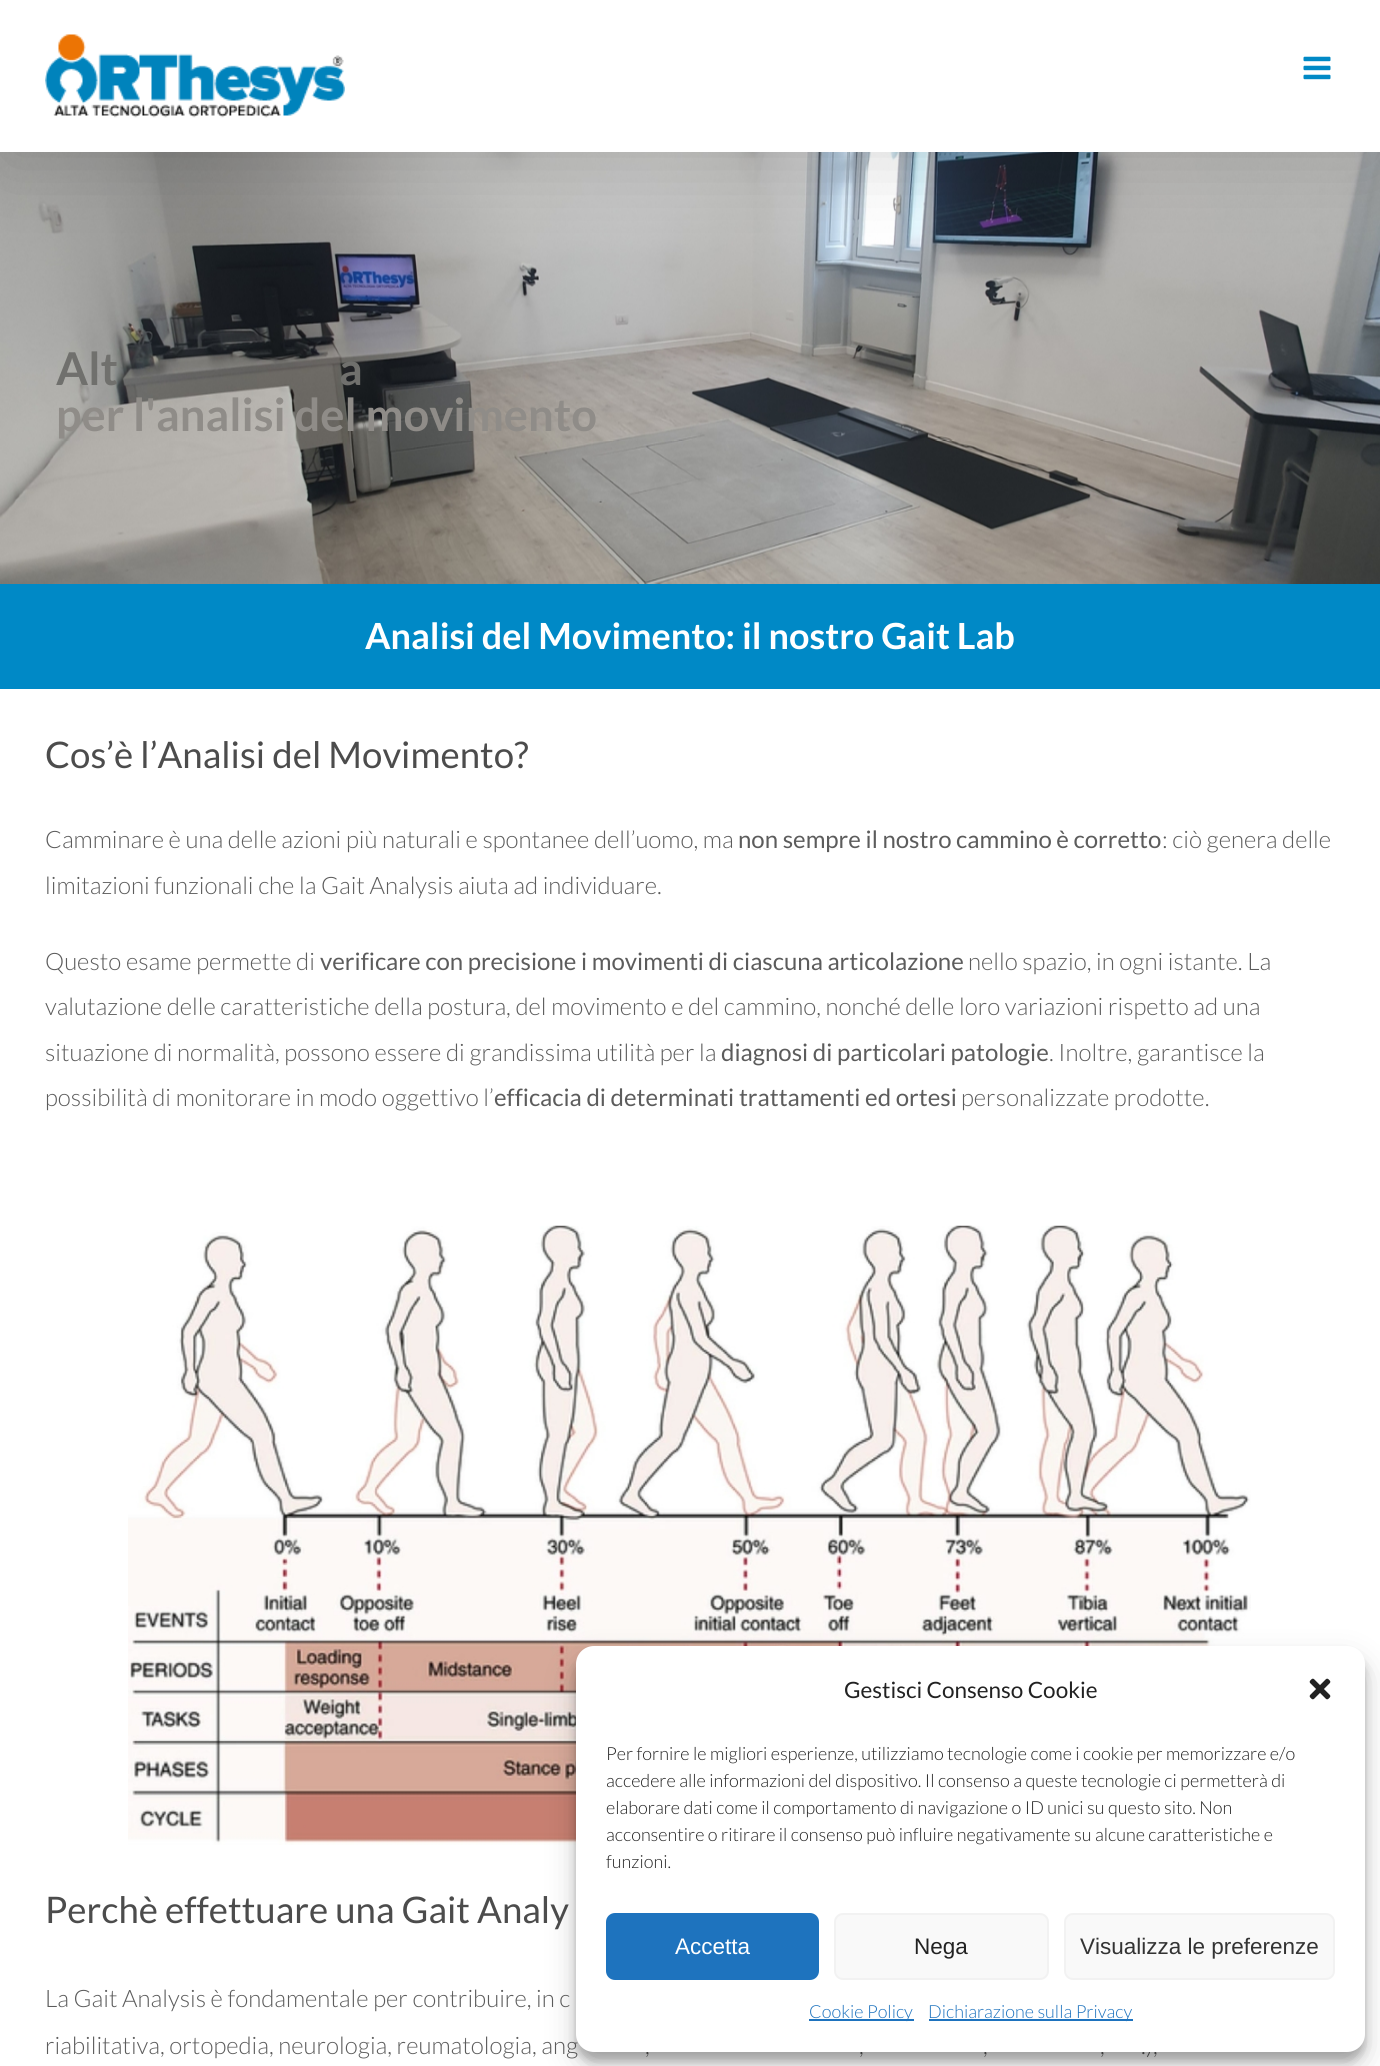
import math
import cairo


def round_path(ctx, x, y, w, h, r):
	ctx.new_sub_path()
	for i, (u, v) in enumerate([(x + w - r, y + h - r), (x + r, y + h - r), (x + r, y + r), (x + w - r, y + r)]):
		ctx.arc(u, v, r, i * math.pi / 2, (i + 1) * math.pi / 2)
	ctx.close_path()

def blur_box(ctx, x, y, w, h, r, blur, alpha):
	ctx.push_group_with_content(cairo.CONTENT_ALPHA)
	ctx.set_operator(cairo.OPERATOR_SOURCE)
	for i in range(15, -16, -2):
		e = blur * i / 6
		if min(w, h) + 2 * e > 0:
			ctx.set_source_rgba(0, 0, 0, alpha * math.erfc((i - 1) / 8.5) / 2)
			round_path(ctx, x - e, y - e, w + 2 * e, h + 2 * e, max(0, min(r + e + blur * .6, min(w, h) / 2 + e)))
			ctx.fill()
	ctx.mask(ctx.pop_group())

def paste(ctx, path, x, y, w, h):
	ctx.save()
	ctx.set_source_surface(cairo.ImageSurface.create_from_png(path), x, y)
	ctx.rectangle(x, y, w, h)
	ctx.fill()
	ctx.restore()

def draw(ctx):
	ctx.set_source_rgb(1, 1, 1)
	ctx.paint()
	paste(ctx, 'media/3.png', 0, 152, 1380, 432)
	ctx.set_source_rgb(0, 0, 0)
	blur_box(ctx, 3, 18, 1374, 146, 0, 37.5, 0.14)
	ctx.set_source_rgb(1, 1, 1)
	ctx.rectangle(0, 0, 1380, 152)
	ctx.fill()
	paste(ctx, 'media/1.png', 45, 34, 300, 84)
	paste(ctx, 'media/2.png', 1303, 56, 28, 24)
	ctx.select_font_face('Lato', cairo.FONT_SLANT_NORMAL, cairo.FONT_WEIGHT_BOLD)
	ctx.set_font_size(45.25)
	ctx.set_source_rgb(0.439, 0.439, 0.427)
	ctx.move_to(56, 385)
	ctx.show_text('Alt')
	ctx.move_to(339, 385)
	ctx.show_text('a')
	ctx.set_source_rgb(0.561, 0.549, 0.533)
	ctx.move_to(56, 431)
	ctx.show_text('per l\'analisi del movimento')
	ctx.set_source_rgb(0, 0.537, 0.776)
	ctx.rectangle(0, 584, 1380, 105)
	ctx.fill()
	ctx.set_font_size(36)
	ctx.set_source_rgb(1, 1, 1)
	ctx.move_to(365, 649)
	ctx.show_text('Analisi del Movimento: il nostro Gait Lab')
	ctx.select_font_face('Lato')
	ctx.set_font_size(36.6)
	ctx.set_source_rgb(0.298, 0.298, 0.298)
	ctx.move_to(45, 768)
	ctx.show_text('Cos’è l’Analisi del Movimento?')
	ctx.select_font_face('Lato Light')
	ctx.set_font_size(24)
	ctx.set_source_rgb(0.361, 0.361, 0.361)
	ctx.move_to(45, 848)
	ctx.show_text('Camminare è una delle azioni più naturali e spontanee dell’uomo, ma')
	ctx.select_font_face('Lato')
	ctx.move_to(738, 848)
	ctx.show_text('non sempre il nostro cammino è corretto')
	ctx.select_font_face('Lato Light')
	for x, y, s in [
		(1162, 848, ': ciò genera delle'),
		(45, 894, 'limitazioni funzionali che la Gait Analysis aiuta ad individuare.'),
		(45, 970, 'Questo esame permette di'),
	]:
		ctx.move_to(x, y)
		ctx.show_text(s)
	ctx.select_font_face('Lato')
	ctx.move_to(320, 970)
	ctx.show_text('verificare con precisione i movimenti di ciascuna articolazione')
	ctx.select_font_face('Lato Light')
	for x, y, s in [
		(968, 970, 'nello spazio, in ogni istante. La'),
		(45, 1015, 'valutazione delle caratteristiche della postura, del movimento e del cammino, nonché delle loro variazioni rispetto ad una'),
		(45, 1061, 'situazione di normalità, possono essere di grandissima utilità per la'),
	]:
		ctx.move_to(x, y)
		ctx.show_text(s)
	ctx.select_font_face('Lato')
	ctx.move_to(721, 1061)
	ctx.show_text('diagnosi di particolari patologie')
	ctx.select_font_face('Lato Light')
	ctx.move_to(1049, 1061)
	ctx.show_text('. Inoltre, garantisce la')
	ctx.move_to(45, 1106)
	ctx.show_text('possibilità di monitorare in modo oggettivo l’')
	ctx.select_font_face('Lato')
	ctx.move_to(494, 1106)
	ctx.show_text('efficacia di determinati trattamenti ed ortesi')
	ctx.select_font_face('Lato Light')
	ctx.move_to(961, 1106)
	ctx.show_text('personalizzate prodotte.')
	paste(ctx, 'media/4.png', 128, 1225, 1123, 620)
	ctx.select_font_face('Lato')
	ctx.set_font_size(36.6)
	ctx.set_source_rgb(0.298, 0.298, 0.298)
	ctx.move_to(45, 1923)
	ctx.show_text('Perchè effettuare una Gait Analy')
	ctx.select_font_face('Lato Light')
	ctx.set_font_size(24)
	ctx.set_source_rgb(0.361, 0.361, 0.361)
	for x, y, s in [
		(45, 2007, 'La Gait Analysis è fondamentale per contribuire, in c'),
		(45, 2054, 'riabilitativa, ortopedia, neurologia, reumatologia, ang'),
		(645, 2054, ','),
		(859, 2054, ','),
		(983, 2054, ','),
		(1100, 2054, ','),
		(1141, 2054, '.),'),
	]:
		ctx.move_to(x, y)
		ctx.show_text(s)
	ctx.set_source_rgb(0, 0, 0)
	blur_box(ctx, 576, 1655, 789, 406, 18, 4.5, 0.23)
	blur_box(ctx, 576, 1661, 789, 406, 18, 15, 0.19)
	ctx.set_source_rgb(1, 1, 1)
	round_path(ctx, 576, 1646, 789, 406, 18)
	ctx.fill()
	ctx.select_font_face('Lato')
	ctx.set_font_size(22.5)
	ctx.set_source_rgb(0.133, 0.133, 0.133)
	ctx.move_to(844, 1698)
	ctx.show_text('Gestisci Consenso Cookie')
	paste(ctx, 'media/5.png', 1309, 1678, 22, 22)
	ctx.select_font_face('Lato Light')
	ctx.set_font_size(18)
	for x, y, s in [
		(606, 1760, 'Per fornire le migliori esperienze, utilizziamo tecnologie come i cookie per memorizzare e/o'),
		(606, 1787, 'accedere alle informazioni del dispositivo. Il consenso a queste tecnologie ci permetterà di'),
		(606, 1814, 'elaborare dati come il comportamento di navigazione o ID unici su questo sito. Non'),
		(606, 1841, 'acconsentire o ritirare il consenso può influire negativamente su alcune caratteristiche e'),
		(606, 1868, 'funzioni.'),
	]:
		ctx.move_to(x, y)
		ctx.show_text(s)
	ctx.set_source_rgb(0.118, 0.451, 0.745)
	round_path(ctx, 607, 1914, 211, 65, 8)
	ctx.fill_preserve()
	ctx.stroke()
	ctx.select_font_face('Liberation Sans')
	ctx.set_font_size(22.5)
	ctx.set_source_rgb(1, 1, 1)
	ctx.move_to(675, 1954)
	ctx.show_text('Accetta')
	ctx.set_source_rgb(0.976, 0.976, 0.976)
	round_path(ctx, 835, 1914, 213, 65, 8)
	ctx.fill_preserve()
	ctx.set_source_rgb(0.949, 0.949, 0.949)
	ctx.stroke()
	ctx.set_source_rgb(0.133, 0.133, 0.133)
	ctx.move_to(914, 1954)
	ctx.show_text('Nega')
	ctx.set_source_rgb(0.976, 0.976, 0.976)
	round_path(ctx, 1065, 1914, 269, 65, 8)
	ctx.fill_preserve()
	ctx.set_source_rgb(0.949, 0.949, 0.949)
	ctx.stroke()
	ctx.set_source_rgb(0.2, 0.2, 0.2)
	ctx.move_to(1080, 1954)
	ctx.show_text('Visualizza le preferenze')
	ctx.set_source_rgb(0.118, 0.451, 0.745)
	ctx.rectangle(809, 2019, 105, 2)
	ctx.fill()
	ctx.select_font_face('Lato Light')
	ctx.set_font_size(18)
	ctx.move_to(809, 2018)
	ctx.show_text('Cookie Policy')
	ctx.rectangle(929, 2019, 204, 2)
	ctx.fill()
	ctx.move_to(928, 2018)
	ctx.show_text('Dichiarazione sulla Privacy')


surface = cairo.ImageSurface(cairo.FORMAT_RGB24, 1380, 2066)
ctx = cairo.Context(surface)
options = cairo.FontOptions()
options.set_hint_metrics(cairo.HINT_METRICS_OFF)
options.set_hint_style(cairo.HINT_STYLE_NONE)
ctx.set_font_options(options)
ctx.set_miter_limit(4)
draw(ctx)
surface.write_to_png('image.png')
